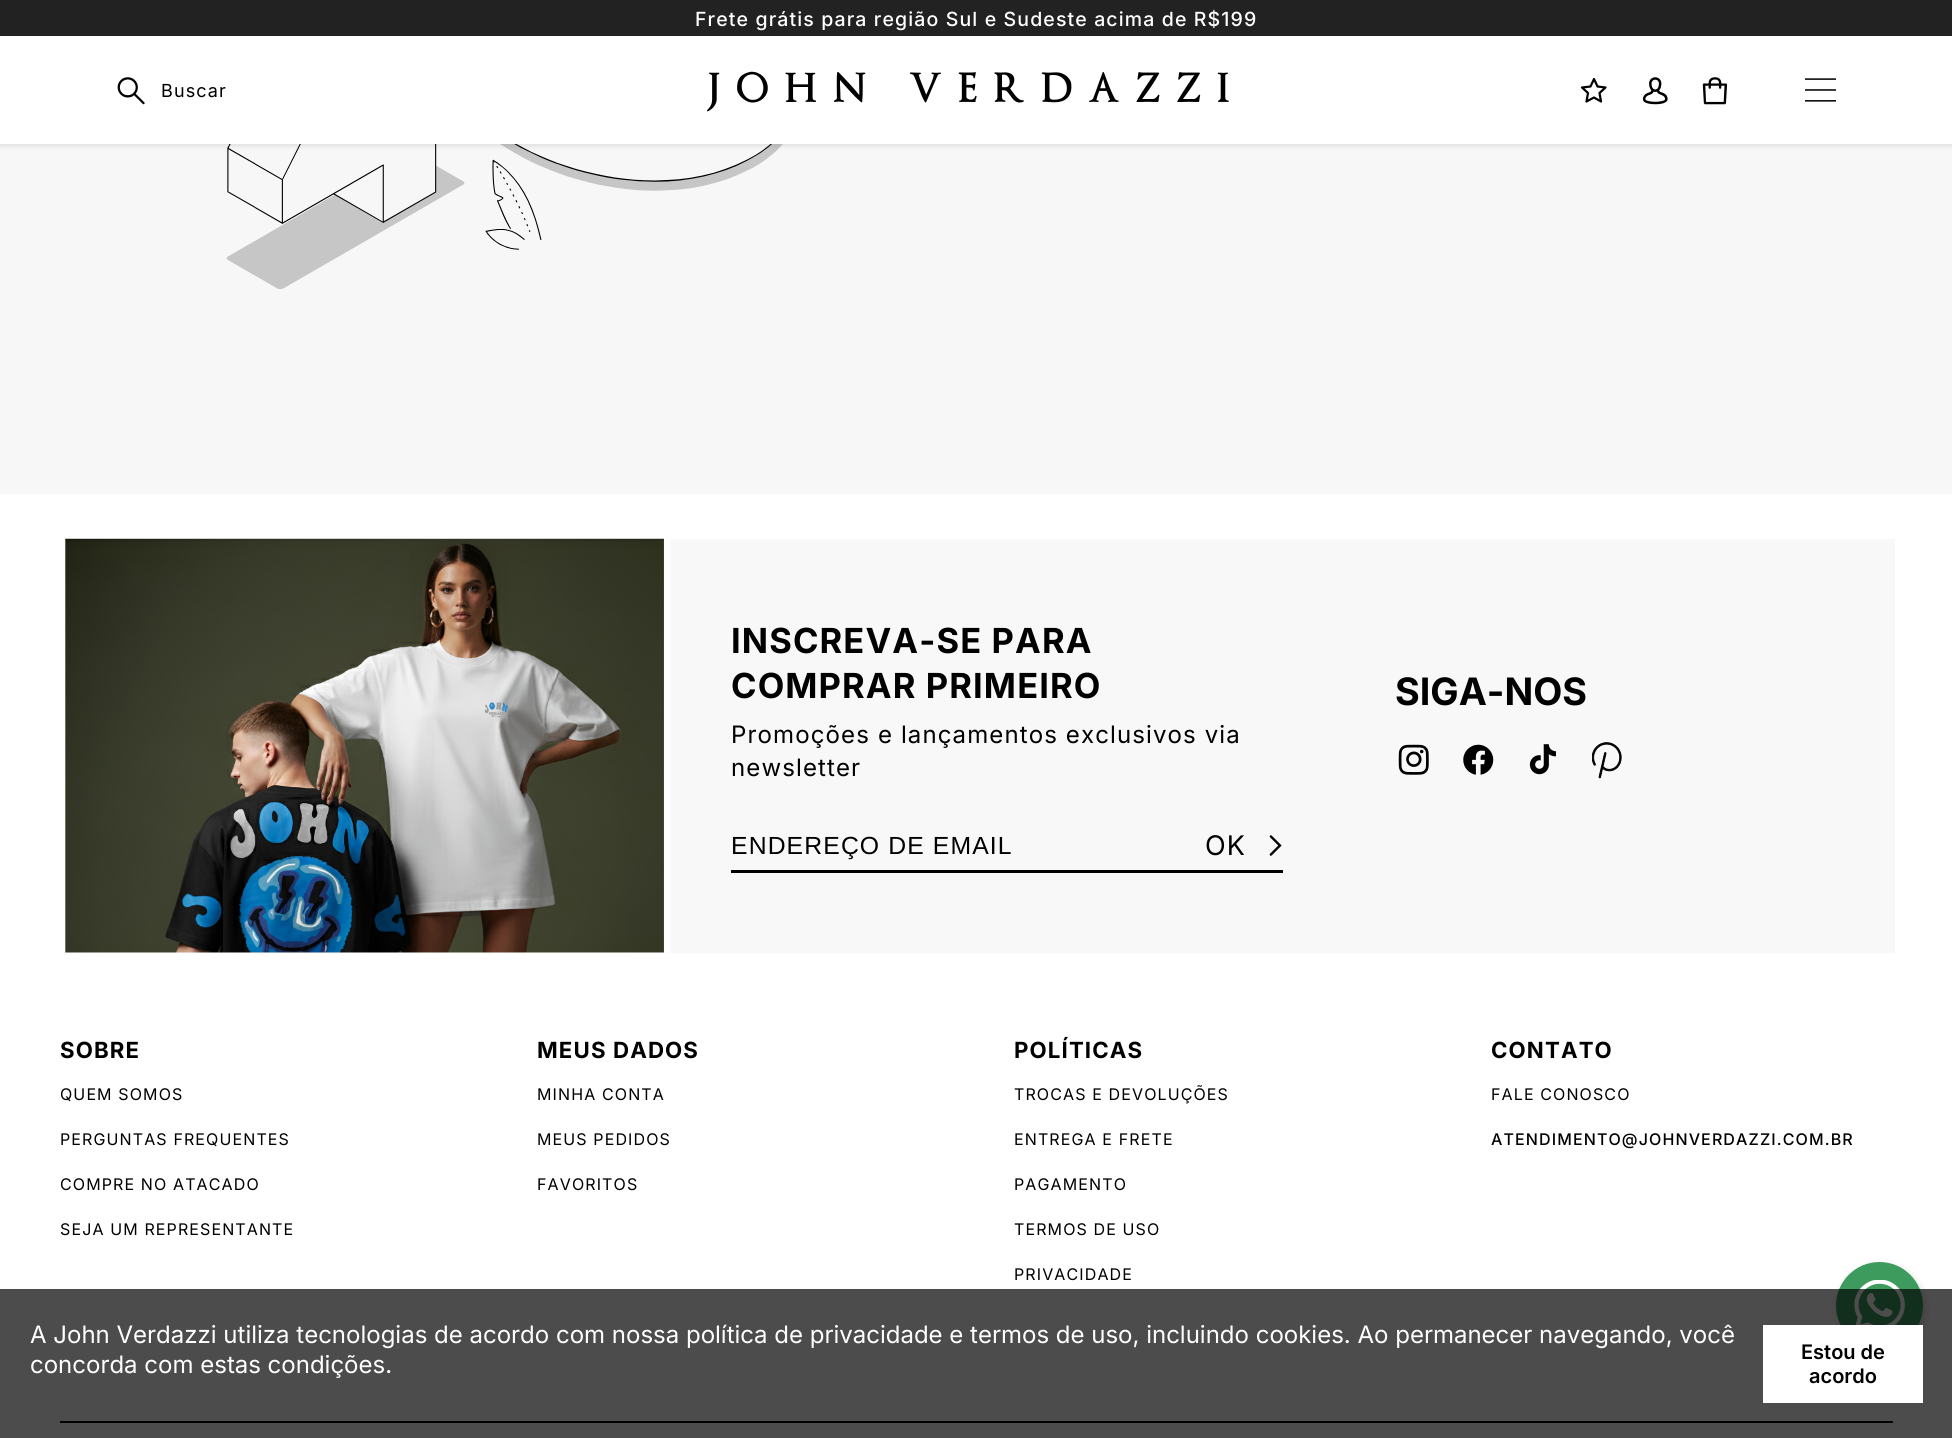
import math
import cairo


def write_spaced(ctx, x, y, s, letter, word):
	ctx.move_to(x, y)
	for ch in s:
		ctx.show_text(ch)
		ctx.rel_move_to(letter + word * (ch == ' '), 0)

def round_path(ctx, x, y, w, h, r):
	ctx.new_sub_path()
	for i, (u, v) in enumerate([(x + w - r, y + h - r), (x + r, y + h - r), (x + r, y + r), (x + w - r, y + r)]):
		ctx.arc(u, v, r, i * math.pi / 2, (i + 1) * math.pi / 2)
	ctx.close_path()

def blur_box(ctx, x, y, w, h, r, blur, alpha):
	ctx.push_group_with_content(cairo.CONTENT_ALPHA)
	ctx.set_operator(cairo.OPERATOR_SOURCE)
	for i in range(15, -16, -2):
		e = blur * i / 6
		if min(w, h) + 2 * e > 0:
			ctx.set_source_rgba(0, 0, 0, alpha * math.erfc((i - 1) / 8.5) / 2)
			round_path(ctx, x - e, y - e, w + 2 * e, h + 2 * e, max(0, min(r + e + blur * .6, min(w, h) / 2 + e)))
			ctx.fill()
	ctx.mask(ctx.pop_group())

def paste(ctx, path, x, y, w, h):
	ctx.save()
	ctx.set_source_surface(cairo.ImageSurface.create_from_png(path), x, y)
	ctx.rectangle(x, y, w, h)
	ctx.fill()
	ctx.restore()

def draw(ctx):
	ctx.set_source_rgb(1, 1, 1)
	ctx.paint()
	ctx.set_source_rgb(0.965, 0.965, 0.965)
	ctx.rectangle(0, 144, 1952, 350)
	ctx.fill()
	paste(ctx, 'media/5.png', 226, 144, 557, 145)
	ctx.set_source_rgb(0, 0, 0)
	blur_box(ctx, 0, 3, 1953, 144, 0, 2, 0.08)
	ctx.set_source_rgb(0.133, 0.133, 0.133)
	ctx.rectangle(0, 0, 1952, 36)
	ctx.fill()
	ctx.select_font_face('Inter Medium')
	ctx.set_font_size(19.5)
	ctx.set_source_rgb(1, 1, 1)
	write_spaced(ctx, 695, 26, 'Frete grátis para região Sul e Sudeste acima de R$199', 1.12, 0)
	ctx.rectangle(0, 36, 1952, 108)
	ctx.fill()
	paste(ctx, 'media/1.png', 117, 77, 28, 28)
	ctx.select_font_face('Inter')
	ctx.set_font_size(18)
	ctx.set_source_rgb(0, 0, 0)
	write_spaced(ctx, 161, 97, 'Buscar', 1.12, 0)
	ctx.select_font_face('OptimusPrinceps', cairo.FONT_SLANT_NORMAL, cairo.FONT_WEIGHT_BOLD)
	ctx.set_font_size(38.25)
	write_spaced(ctx, 708, 102, 'JOHN VERDAZZI', 17.25, 0)
	ctx.new_path()
	ctx.move_to(1594, 79)
	ctx.line_to(1597.5, 86.5)
	ctx.line_to(1605.5, 87.5)
	ctx.line_to(1599.5, 93)
	ctx.line_to(1601, 101.5)
	ctx.line_to(1594, 97.5)
	ctx.line_to(1586.5, 101.5)
	ctx.line_to(1588, 93)
	ctx.line_to(1582, 87.5)
	ctx.line_to(1590.5, 86.5)
	ctx.close_path()
	ctx.set_line_width(2.2)
	ctx.set_line_join(cairo.LINE_JOIN_ROUND)
	ctx.stroke()
	paste(ctx, 'media/2.png', 1643, 77, 25, 28)
	paste(ctx, 'media/3.png', 1702, 77, 25, 28)
	paste(ctx, 'media/4.png', 1805, 78, 31, 24)
	ctx.set_source_rgb(0.969, 0.969, 0.969)
	ctx.rectangle(59, 539, 1836, 414)
	ctx.fill()
	paste(ctx, 'media/6.png', 59, 538, 612, 415)
	ctx.select_font_face('Inter', cairo.FONT_SLANT_NORMAL, cairo.FONT_WEIGHT_BOLD)
	ctx.set_font_size(34.5)
	ctx.set_source_rgb(0, 0, 0)
	write_spaced(ctx, 731, 653, 'INSCREVA-SE PARA', 1.12, 0)
	write_spaced(ctx, 731, 698, 'COMPRAR PRIMEIRO', 1.12, 0)
	ctx.select_font_face('Inter')
	ctx.set_font_size(24)
	write_spaced(ctx, 731, 743, 'Promoções e lançamentos exclusivos via', 1.12, 0)
	write_spaced(ctx, 731, 776, 'newsletter', 1.12, 0)
	ctx.rectangle(731, 870, 552, 3)
	ctx.fill()
	ctx.select_font_face('Liberation Sans')
	ctx.set_font_size(24.75)
	write_spaced(ctx, 731, 854, 'ENDEREÇO DE EMAIL', 1.12, 0)
	ctx.select_font_face('Inter')
	ctx.set_font_size(27)
	write_spaced(ctx, 1205, 855, 'OK', 1.12, 0)
	paste(ctx, 'media/7.png', 1269, 835, 13, 21)
	ctx.select_font_face('Inter', cairo.FONT_SLANT_NORMAL, cairo.FONT_WEIGHT_BOLD)
	ctx.set_font_size(37.75)
	ctx.move_to(1395, 705)
	ctx.show_text('SIGA-NOS')
	paste(ctx, 'media/8.png', 1398, 744, 31, 31)
	paste(ctx, 'media/9.png', 1463, 744, 31, 31)
	paste(ctx, 'media/10.png', 1529, 744, 27, 31)
	paste(ctx, 'media/11.png', 1592, 742, 30, 37)
	ctx.set_font_size(22.25)
	write_spaced(ctx, 60, 1058, 'SOBRE', 1.12, 0)
	ctx.select_font_face('Inter')
	ctx.set_font_size(16)
	for x, y, s in [
		(60, 1100, 'QUEM SOMOS'),
		(60, 1145, 'PERGUNTAS FREQUENTES'),
		(60, 1190, 'COMPRE NO ATACADO'),
		(60, 1235, 'SEJA UM REPRESENTANTE'),
	]:
		write_spaced(ctx, x, y, s, 1.12, 0)
	ctx.select_font_face('Inter', cairo.FONT_SLANT_NORMAL, cairo.FONT_WEIGHT_BOLD)
	ctx.set_font_size(22.25)
	write_spaced(ctx, 537, 1058, 'MEUS DADOS', 1.12, 0)
	ctx.select_font_face('Inter')
	ctx.set_font_size(16)
	for x, y, s in [
		(537, 1100, 'MINHA CONTA'),
		(537, 1145, 'MEUS PEDIDOS'),
		(537, 1190, 'FAVORITOS'),
	]:
		write_spaced(ctx, x, y, s, 1.12, 0)
	ctx.select_font_face('Inter', cairo.FONT_SLANT_NORMAL, cairo.FONT_WEIGHT_BOLD)
	ctx.set_font_size(22.25)
	write_spaced(ctx, 1014, 1058, 'POLÍTICAS', 1.12, 0)
	ctx.select_font_face('Inter')
	ctx.set_font_size(16)
	for x, y, s in [
		(1014, 1100, 'TROCAS E DEVOLUÇÕES'),
		(1014, 1145, 'ENTREGA E FRETE'),
		(1014, 1190, 'PAGAMENTO'),
		(1014, 1235, 'TERMOS DE USO'),
		(1014, 1280, 'PRIVACIDADE'),
	]:
		write_spaced(ctx, x, y, s, 1.12, 0)
	ctx.select_font_face('Inter', cairo.FONT_SLANT_NORMAL, cairo.FONT_WEIGHT_BOLD)
	ctx.set_font_size(22.25)
	write_spaced(ctx, 1491, 1058, 'CONTATO', 1.12, 0)
	ctx.select_font_face('Inter')
	ctx.set_font_size(16)
	write_spaced(ctx, 1491, 1100, 'FALE CONOSCO', 1.12, 0)
	ctx.select_font_face('Inter Medium')
	write_spaced(ctx, 1491, 1145, 'ATENDIMENTO@JOHNVERDAZZI.COM.BR', 1.12, 0)
	ctx.rectangle(60, 1421, 1833, 2)
	ctx.fill()
	ctx.set_source_rgb(0, 0, 0)
	blur_box(ctx, 1838, 1266, 87, 87, 43.5, 4, 0.15)
	ctx.set_source_rgb(0.239, 0.612, 0.365)
	ctx.arc(1879.5, 1305.5, 43.5, 0, 2 * math.pi)
	ctx.fill()
	paste(ctx, 'media/12.png', 1854, 1280, 51, 45)
	ctx.set_source_rgba(0, 0, 0, 0.7)
	ctx.rectangle(0, 1289, 1952, 149)
	ctx.fill()
	ctx.select_font_face('Inter')
	ctx.set_font_size(24)
	ctx.set_source_rgb(1, 1, 1)
	ctx.move_to(30, 1343)
	ctx.show_text('A John Verdazzi utiliza tecnologias de acordo com nossa política de privacidade e termos de uso, incluindo cookies. Ao permanecer navegando, você')
	ctx.move_to(30, 1373)
	ctx.show_text('concorda com estas condições.')
	ctx.rectangle(1763, 1325, 160, 78)
	ctx.fill()
	ctx.select_font_face('Inter SemiBold')
	ctx.set_font_size(20)
	ctx.set_source_rgb(0, 0, 0)
	ctx.move_to(1801, 1359)
	ctx.show_text('Estou de')
	ctx.move_to(1809, 1383)
	ctx.show_text('acordo')


surface = cairo.ImageSurface(cairo.FORMAT_RGB24, 1952, 1438)
ctx = cairo.Context(surface)
options = cairo.FontOptions()
options.set_hint_metrics(cairo.HINT_METRICS_OFF)
options.set_hint_style(cairo.HINT_STYLE_NONE)
ctx.set_font_options(options)
ctx.set_miter_limit(4)
draw(ctx)
surface.write_to_png('image.png')
